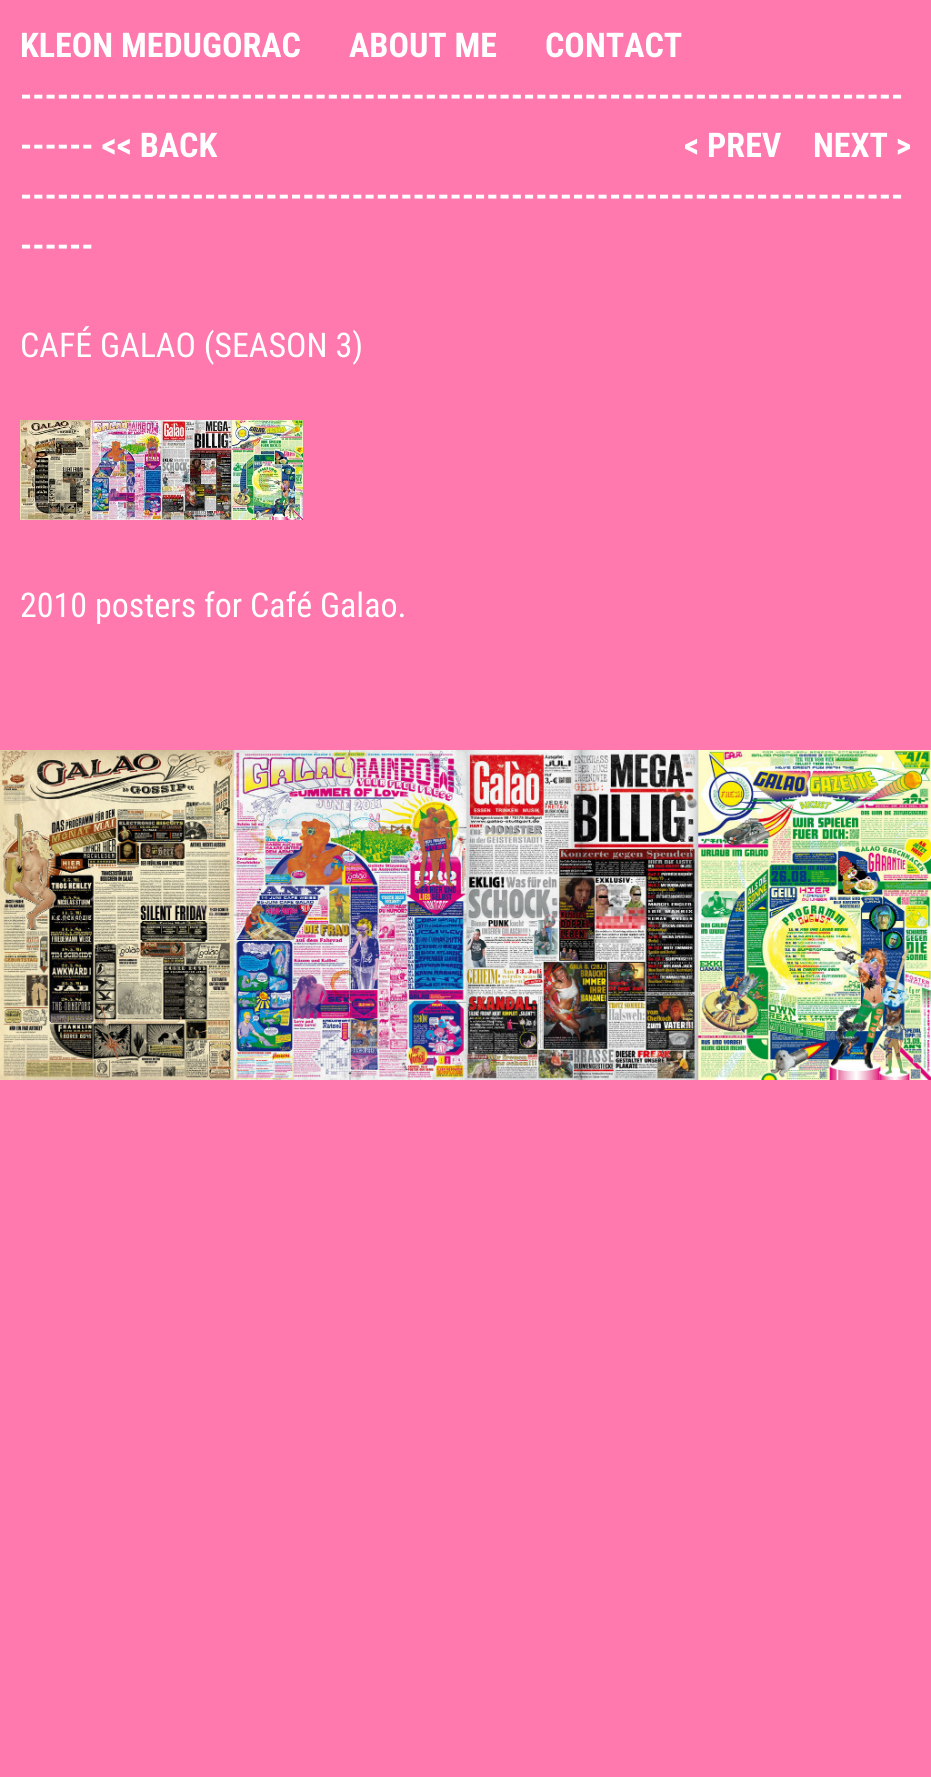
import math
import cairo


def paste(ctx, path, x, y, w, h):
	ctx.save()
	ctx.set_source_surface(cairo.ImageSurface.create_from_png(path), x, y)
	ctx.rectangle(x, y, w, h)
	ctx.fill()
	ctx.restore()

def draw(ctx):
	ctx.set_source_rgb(1, 0.471, 0.682)
	ctx.paint()
	ctx.select_font_face('Roboto Condensed', cairo.FONT_SLANT_NORMAL, cairo.FONT_WEIGHT_BOLD)
	ctx.set_font_size(34)
	ctx.set_source_rgb(1, 1, 1)
	for x, y, s in [
		(20, 57, 'KLEON MEDUGORAC'),
		(349, 57, 'ABOUT ME'),
		(545, 57, 'CONTACT'),
		(20, 107, '------------------------------------------------------------------------'),
		(684, 157, '< PREV'),
		(813, 157, 'NEXT >'),
		(20, 207, '------------------------------------------------------------------------'),
		(20, 257, '------'),
		(20, 157, '------ << BACK'),
	]:
		ctx.move_to(x, y)
		ctx.show_text(s)
	ctx.select_font_face('Roboto Condensed')
	ctx.move_to(20, 357)
	ctx.show_text('CAFÉ GALAO (SEASON 3)')
	paste(ctx, 'media/1.png', 20, 420, 283, 100)
	ctx.move_to(20, 617)
	ctx.show_text('2010 posters for Café Galao.')
	paste(ctx, 'media/2.png', 0, 750, 931, 330)


surface = cairo.ImageSurface(cairo.FORMAT_RGB24, 931, 1777)
ctx = cairo.Context(surface)
options = cairo.FontOptions()
options.set_hint_metrics(cairo.HINT_METRICS_OFF)
options.set_hint_style(cairo.HINT_STYLE_NONE)
ctx.set_font_options(options)
ctx.set_miter_limit(4)
draw(ctx)
surface.write_to_png('image.png')
